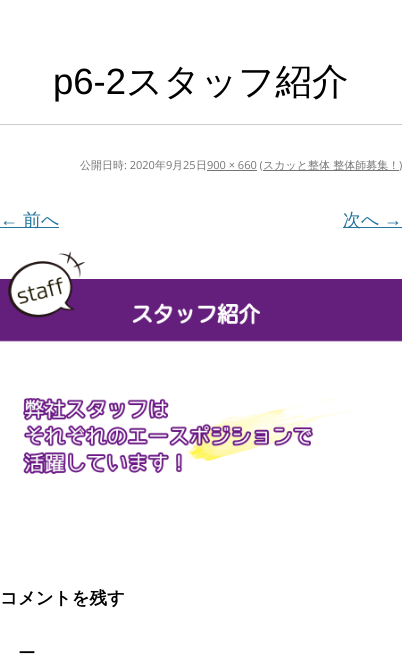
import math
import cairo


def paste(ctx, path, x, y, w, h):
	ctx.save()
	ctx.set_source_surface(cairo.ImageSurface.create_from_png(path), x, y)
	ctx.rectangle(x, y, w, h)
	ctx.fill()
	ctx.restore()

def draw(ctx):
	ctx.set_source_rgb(1, 1, 1)
	ctx.paint()
	ctx.set_source_rgb(0.8, 0.8, 0.8)
	ctx.rectangle(0, 124, 402, 1)
	ctx.fill()
	ctx.select_font_face('Liberation Sans')
	ctx.set_font_size(36.5)
	ctx.set_source_rgb(0, 0, 0)
	ctx.move_to(53, 94)
	ctx.show_text('p6-2')
	ctx.select_font_face('WenQuanYi Zen Hei Medium')
	ctx.move_to(126, 94)
	ctx.show_text('スタッフ紹介')
	ctx.set_font_size(11)
	ctx.set_source_rgb(0.459, 0.459, 0.459)
	ctx.move_to(80, 169)
	ctx.show_text('公開日時')
	ctx.select_font_face('Open Sans')
	ctx.move_to(124, 169)
	ctx.show_text(': 2020')
	ctx.select_font_face('WenQuanYi Zen Hei Medium')
	ctx.move_to(155, 169)
	ctx.show_text('年')
	ctx.select_font_face('Open Sans')
	ctx.move_to(166, 169)
	ctx.show_text('9')
	ctx.select_font_face('WenQuanYi Zen Hei Medium')
	ctx.move_to(172, 169)
	ctx.show_text('月')
	ctx.select_font_face('Open Sans')
	ctx.move_to(183, 169)
	ctx.show_text('25')
	ctx.select_font_face('WenQuanYi Zen Hei Medium')
	ctx.move_to(196, 169)
	ctx.show_text('日')
	ctx.rectangle(207, 170, 50, 1)
	ctx.fill()
	ctx.select_font_face('Open Sans')
	ctx.move_to(207, 169)
	ctx.show_text('900 × 660 (')
	ctx.rectangle(263, 170, 136, 1)
	ctx.fill()
	ctx.select_font_face('WenQuanYi Zen Hei Medium')
	ctx.move_to(263, 169)
	ctx.show_text('スカッと整体 整体師募集！')
	ctx.select_font_face('Open Sans')
	ctx.move_to(399, 169)
	ctx.show_text(')')
	ctx.select_font_face('Liberation Sans')
	ctx.set_font_size(18)
	ctx.set_source_rgb(0.129, 0.459, 0.608)
	ctx.move_to(0, 226)
	ctx.show_text('←')
	ctx.rectangle(0, 227, 59, 1)
	ctx.fill()
	ctx.select_font_face('WenQuanYi Zen Hei Medium')
	ctx.move_to(23, 226)
	ctx.show_text('前へ')
	ctx.rectangle(343, 227, 59, 1)
	ctx.fill()
	ctx.move_to(343, 226)
	ctx.show_text('次へ')
	ctx.select_font_face('Liberation Sans')
	ctx.move_to(384, 226)
	ctx.show_text('→')
	paste(ctx, 'media/1.png', 0, 251, 402, 223)
	ctx.select_font_face('WenQuanYi Zen Hei', cairo.FONT_SLANT_NORMAL, cairo.FONT_WEIGHT_BOLD)
	ctx.set_font_size(17.5)
	ctx.set_source_rgb(0, 0, 0)
	ctx.move_to(0, 604)
	ctx.show_text('コメントを残す')
	ctx.select_font_face('WenQuanYi Zen Hei Medium')
	ctx.set_font_size(18)
	ctx.move_to(18, 659)
	ctx.show_text('ー')


surface = cairo.ImageSurface(cairo.FORMAT_RGB24, 402, 655)
ctx = cairo.Context(surface)
options = cairo.FontOptions()
options.set_hint_metrics(cairo.HINT_METRICS_OFF)
options.set_hint_style(cairo.HINT_STYLE_NONE)
ctx.set_font_options(options)
ctx.set_miter_limit(4)
draw(ctx)
surface.write_to_png('image.png')
